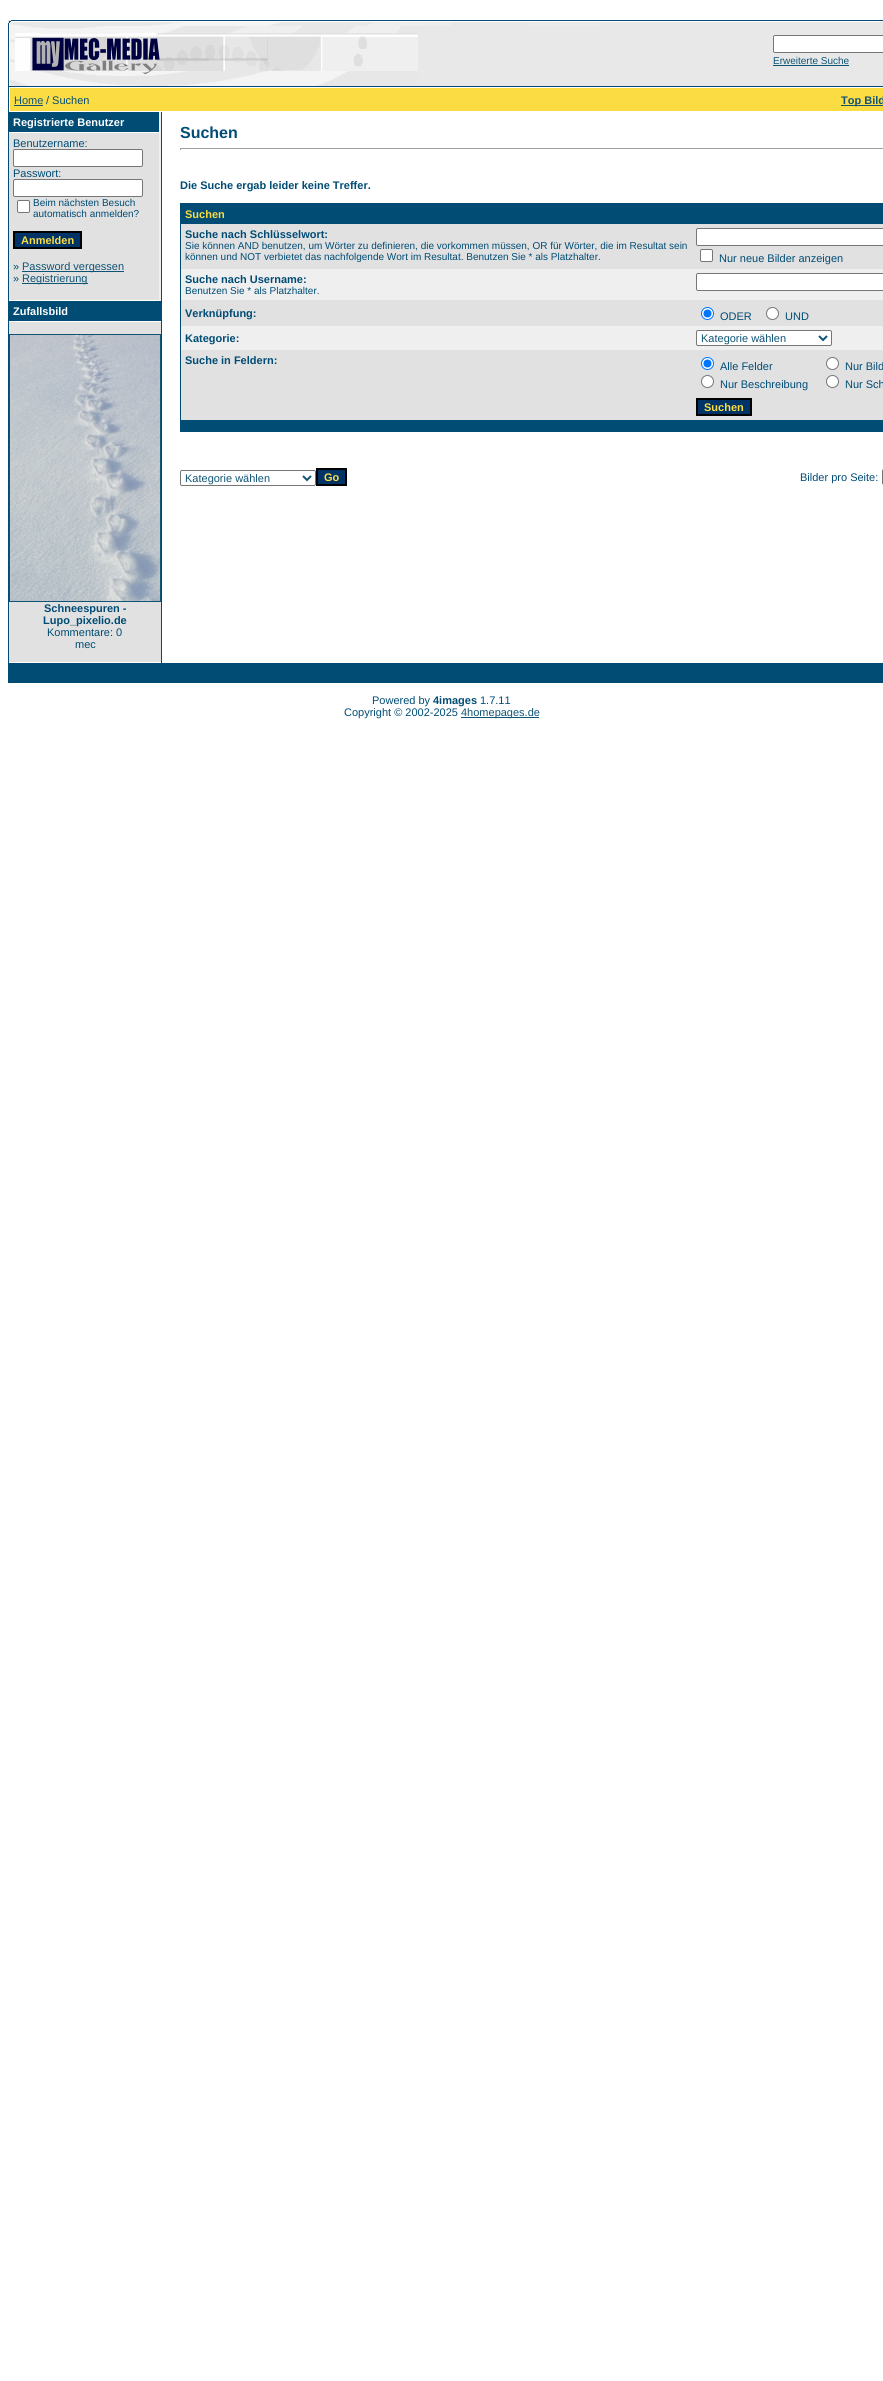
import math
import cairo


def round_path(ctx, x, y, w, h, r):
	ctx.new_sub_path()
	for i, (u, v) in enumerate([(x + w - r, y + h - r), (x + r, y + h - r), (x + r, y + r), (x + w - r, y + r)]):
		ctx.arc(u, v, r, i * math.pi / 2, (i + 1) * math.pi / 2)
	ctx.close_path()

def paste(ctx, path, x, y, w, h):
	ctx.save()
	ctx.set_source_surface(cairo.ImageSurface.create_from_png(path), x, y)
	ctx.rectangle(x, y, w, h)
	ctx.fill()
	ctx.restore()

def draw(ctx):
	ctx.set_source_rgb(1, 1, 1)
	ctx.paint()
	ctx.set_source_rgb(0.91, 0.91, 0.91)
	ctx.rectangle(8, 20, 875, 66)
	ctx.fill()
	paste(ctx, 'media/1.png', 8, 20, 6, 6)
	paste(ctx, 'media/2.png', 14, 20, 869, 6)
	paste(ctx, 'media/3.png', 8, 26, 6, 60)
	paste(ctx, 'media/4.png', 14, 26, 404, 60)
	ctx.set_source_rgb(1, 1, 1)
	round_path(ctx, 773.5, 35.5, 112, 17, 1.5)
	ctx.fill_preserve()
	ctx.set_source_rgb(0.463, 0.463, 0.463)
	ctx.set_line_width(1)
	ctx.stroke()
	ctx.select_font_face('Liberation Sans')
	ctx.set_font_size(10)
	ctx.set_source_rgb(0.059, 0.329, 0.459)
	ctx.move_to(773, 64)
	ctx.show_text('Erweiterte Suche')
	ctx.rectangle(773, 65, 76, 1)
	ctx.fill()
	ctx.set_source_rgb(0, 0.298, 0.459)
	ctx.rectangle(8, 86, 875, 597)
	ctx.fill()
	ctx.set_source_rgb(1, 1, 1)
	ctx.rectangle(9, 87, 874, 576)
	ctx.fill()
	ctx.set_source_rgb(0.988, 0.863, 0.263)
	ctx.rectangle(10, 88, 873, 23)
	ctx.fill()
	ctx.set_font_size(11)
	ctx.set_source_rgb(0.059, 0.329, 0.459)
	ctx.move_to(14, 104)
	ctx.show_text('Home')
	ctx.rectangle(14, 105, 29, 1)
	ctx.fill()
	ctx.set_source_rgb(0, 0.298, 0.459)
	ctx.move_to(46, 104)
	ctx.show_text('/ Suchen')
	ctx.set_source_rgb(0.059, 0.329, 0.459)
	ctx.rectangle(841, 105, 42, 1)
	ctx.fill()
	ctx.select_font_face('Liberation Sans', cairo.FONT_SLANT_NORMAL, cairo.FONT_WEIGHT_BOLD)
	ctx.move_to(841, 104)
	ctx.show_text('Top Bild')
	ctx.set_source_rgb(0.937, 0.937, 0.937)
	ctx.rectangle(159, 112, 2, 189)
	ctx.fill()
	ctx.set_source_rgb(0, 0.298, 0.459)
	ctx.rectangle(9, 112, 150, 20)
	ctx.fill()
	ctx.set_source_rgb(1, 1, 1)
	ctx.move_to(13, 126)
	ctx.show_text('Registrierte Benutzer')
	ctx.set_source_rgb(0.882, 0.882, 0.882)
	ctx.rectangle(9, 133, 150, 167)
	ctx.fill()
	ctx.select_font_face('Liberation Sans')
	ctx.set_source_rgb(0, 0.298, 0.459)
	ctx.move_to(13, 147)
	ctx.show_text('Benutzername:')
	ctx.set_source_rgb(1, 1, 1)
	round_path(ctx, 13.5, 149.5, 129, 17, 1.5)
	ctx.fill_preserve()
	ctx.set_source_rgb(0.463, 0.463, 0.463)
	ctx.stroke()
	ctx.set_source_rgb(0, 0.298, 0.459)
	ctx.move_to(13, 177)
	ctx.show_text('Passwort:')
	ctx.set_source_rgb(1, 1, 1)
	round_path(ctx, 13.5, 179.5, 129, 17, 1.5)
	ctx.fill_preserve()
	ctx.set_source_rgb(0.463, 0.463, 0.463)
	ctx.stroke()
	ctx.set_source_rgb(1, 1, 1)
	round_path(ctx, 17.5, 200.5, 12, 12, 1.5)
	ctx.fill_preserve()
	ctx.set_source_rgb(0.463, 0.463, 0.463)
	ctx.stroke()
	ctx.set_font_size(10)
	ctx.set_source_rgb(0, 0.298, 0.459)
	ctx.move_to(33, 206)
	ctx.show_text('Beim nächsten Besuch')
	ctx.move_to(33, 217)
	ctx.show_text('automatisch anmelden?')
	ctx.set_source_rgb(0, 0.2, 0.4)
	ctx.rectangle(14, 232, 67, 16)
	ctx.fill_preserve()
	ctx.set_source_rgb(0, 0, 0)
	ctx.set_line_width(2)
	ctx.stroke()
	ctx.select_font_face('Liberation Sans', cairo.FONT_SLANT_NORMAL, cairo.FONT_WEIGHT_BOLD)
	ctx.set_font_size(11)
	ctx.set_source_rgb(0.988, 0.863, 0.263)
	ctx.move_to(21, 244)
	ctx.show_text('Anmelden')
	ctx.select_font_face('Liberation Sans')
	ctx.set_source_rgb(0, 0.298, 0.459)
	ctx.move_to(13, 270)
	ctx.show_text('»')
	ctx.set_source_rgb(0.059, 0.329, 0.459)
	ctx.rectangle(22, 271, 102, 1)
	ctx.fill()
	ctx.move_to(22, 270)
	ctx.show_text('Password vergessen')
	ctx.set_source_rgb(0, 0.298, 0.459)
	ctx.move_to(13, 282)
	ctx.show_text('»')
	ctx.set_source_rgb(0.059, 0.329, 0.459)
	ctx.rectangle(22, 283, 66, 1)
	ctx.fill()
	ctx.move_to(22, 282)
	ctx.show_text('Registrierung')
	ctx.set_source_rgb(0, 0.298, 0.459)
	ctx.rectangle(9, 301, 152, 20)
	ctx.fill()
	ctx.select_font_face('Liberation Sans', cairo.FONT_SLANT_NORMAL, cairo.FONT_WEIGHT_BOLD)
	ctx.set_source_rgb(1, 1, 1)
	ctx.move_to(13, 315)
	ctx.show_text('Zufallsbild')
	ctx.set_source_rgb(0.882, 0.882, 0.882)
	ctx.rectangle(9, 322, 152, 340)
	ctx.fill()
	ctx.rectangle(9.5, 334.5, 151, 267)
	ctx.set_source_rgb(0.059, 0.329, 0.459)
	ctx.set_line_width(1)
	ctx.stroke()
	paste(ctx, 'media/5.png', 10, 335, 150, 266)
	ctx.set_source_rgb(0, 0.298, 0.459)
	ctx.move_to(44, 612)
	ctx.show_text('Schneespuren -')
	ctx.move_to(43, 624)
	ctx.show_text('Lupo_pixelio.de')
	ctx.select_font_face('Liberation Sans')
	ctx.move_to(47, 636)
	ctx.show_text('Kommentare: 0')
	ctx.move_to(75, 648)
	ctx.show_text('mec')
	ctx.rectangle(161, 112, 1, 551)
	ctx.fill()
	ctx.select_font_face('Liberation Sans', cairo.FONT_SLANT_NORMAL, cairo.FONT_WEIGHT_BOLD)
	ctx.set_font_size(16)
	ctx.move_to(180, 138)
	ctx.show_text('Suchen')
	ctx.set_source_rgb(0.624, 0.624, 0.624)
	ctx.rectangle(180, 148, 703, 1)
	ctx.fill()
	ctx.rectangle(180, 148, 1, 2)
	ctx.fill()
	ctx.set_font_size(11)
	ctx.set_source_rgb(0, 0.298, 0.459)
	ctx.move_to(180, 189)
	ctx.show_text('Die Suche ergab leider keine Treffer.')
	ctx.rectangle(180, 203, 703, 229)
	ctx.fill()
	ctx.set_source_rgb(0.988, 0.863, 0.263)
	ctx.move_to(185, 218)
	ctx.show_text('Suchen')
	ctx.set_source_rgb(0.882, 0.882, 0.882)
	ctx.rectangle(181, 224, 702, 45)
	ctx.fill()
	ctx.set_source_rgb(0, 0.298, 0.459)
	ctx.move_to(185, 238)
	ctx.show_text('Suche nach Schlüsselwort:')
	ctx.select_font_face('Liberation Sans')
	ctx.set_font_size(10)
	ctx.move_to(185, 249)
	ctx.show_text('Sie können AND benutzen, um Wörter zu definieren, die vorkommen müssen, OR für Wörter, die im Resultat sein')
	ctx.move_to(185, 260)
	ctx.show_text('können und NOT verbietet das nachfolgende Wort im Resultat. Benutzen Sie * als Platzhalter.')
	ctx.set_source_rgb(1, 1, 1)
	round_path(ctx, 696.5, 228.5, 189, 17, 1.5)
	ctx.fill_preserve()
	ctx.set_source_rgb(0.463, 0.463, 0.463)
	ctx.stroke()
	ctx.set_source_rgb(1, 1, 1)
	round_path(ctx, 700.5, 249.5, 12, 12, 1.5)
	ctx.fill_preserve()
	ctx.set_source_rgb(0.463, 0.463, 0.463)
	ctx.stroke()
	ctx.set_font_size(11)
	ctx.set_source_rgb(0, 0.298, 0.459)
	ctx.move_to(719, 262)
	ctx.show_text('Nur neue Bilder anzeigen')
	ctx.set_source_rgb(0.937, 0.937, 0.937)
	ctx.rectangle(181, 269, 702, 31)
	ctx.fill()
	ctx.select_font_face('Liberation Sans', cairo.FONT_SLANT_NORMAL, cairo.FONT_WEIGHT_BOLD)
	ctx.set_source_rgb(0, 0.298, 0.459)
	ctx.move_to(185, 283)
	ctx.show_text('Suche nach Username:')
	ctx.select_font_face('Liberation Sans')
	ctx.set_font_size(10)
	ctx.move_to(185, 294)
	ctx.show_text('Benutzen Sie * als Platzhalter.')
	ctx.set_source_rgb(1, 1, 1)
	round_path(ctx, 696.5, 273.5, 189, 17, 1.5)
	ctx.fill_preserve()
	ctx.set_source_rgb(0.463, 0.463, 0.463)
	ctx.stroke()
	ctx.set_source_rgb(0.882, 0.882, 0.882)
	ctx.rectangle(181, 300, 702, 26)
	ctx.fill()
	ctx.select_font_face('Liberation Sans', cairo.FONT_SLANT_NORMAL, cairo.FONT_WEIGHT_BOLD)
	ctx.set_font_size(11)
	ctx.set_source_rgb(0, 0.298, 0.459)
	ctx.move_to(185, 317)
	ctx.show_text('Verknüpfung:')
	ctx.set_source_rgb(1, 1, 1)
	ctx.new_path()
	ctx.arc(707.5, 313.5, 6, 0, 2 * math.pi)
	ctx.fill_preserve()
	ctx.set_source_rgb(0, 0.459, 1)
	ctx.stroke()
	ctx.arc(707.5, 313.5, 4, 0, 2 * math.pi)
	ctx.fill()
	ctx.select_font_face('Liberation Sans')
	ctx.set_source_rgb(0, 0.298, 0.459)
	ctx.move_to(720, 320)
	ctx.show_text('ODER')
	ctx.set_source_rgb(1, 1, 1)
	ctx.new_path()
	ctx.arc(772.5, 313.5, 6, 0, 2 * math.pi)
	ctx.fill_preserve()
	ctx.set_source_rgb(0.463, 0.463, 0.463)
	ctx.stroke()
	ctx.set_source_rgb(0, 0.298, 0.459)
	ctx.move_to(785, 320)
	ctx.show_text('UND')
	ctx.set_source_rgb(0.937, 0.937, 0.937)
	ctx.rectangle(181, 326, 702, 24)
	ctx.fill()
	ctx.select_font_face('Liberation Sans', cairo.FONT_SLANT_NORMAL, cairo.FONT_WEIGHT_BOLD)
	ctx.set_source_rgb(0, 0.298, 0.459)
	ctx.move_to(185, 342)
	ctx.show_text('Kategorie:')
	ctx.set_source_rgb(1, 1, 1)
	round_path(ctx, 696.5, 330.5, 135, 15, 1.5)
	ctx.fill_preserve()
	ctx.set_source_rgb(0.463, 0.463, 0.463)
	ctx.stroke()
	ctx.new_path()
	ctx.move_to(819, 336)
	ctx.line_to(823, 340)
	ctx.line_to(827, 336)
	ctx.set_source_rgb(0.059, 0.329, 0.459)
	ctx.set_line_width(2)
	ctx.stroke()
	ctx.select_font_face('Liberation Sans')
	ctx.move_to(701, 342)
	ctx.show_text('Kategorie wählen')
	ctx.set_source_rgb(0.882, 0.882, 0.882)
	ctx.rectangle(181, 350, 702, 44)
	ctx.fill()
	ctx.select_font_face('Liberation Sans', cairo.FONT_SLANT_NORMAL, cairo.FONT_WEIGHT_BOLD)
	ctx.set_source_rgb(0, 0.298, 0.459)
	ctx.move_to(185, 364)
	ctx.show_text('Suche in Feldern:')
	ctx.set_source_rgb(1, 1, 1)
	ctx.new_path()
	ctx.arc(707.5, 363.5, 6, 0, 2 * math.pi)
	ctx.fill_preserve()
	ctx.set_source_rgb(0, 0.459, 1)
	ctx.set_line_width(1)
	ctx.stroke()
	ctx.arc(707.5, 363.5, 4, 0, 2 * math.pi)
	ctx.fill()
	ctx.select_font_face('Liberation Sans')
	ctx.set_source_rgb(0, 0.298, 0.459)
	ctx.move_to(720, 370)
	ctx.show_text('Alle Felder')
	ctx.set_source_rgb(1, 1, 1)
	ctx.new_path()
	ctx.arc(832.5, 363.5, 6, 0, 2 * math.pi)
	ctx.fill_preserve()
	ctx.set_source_rgb(0.463, 0.463, 0.463)
	ctx.stroke()
	ctx.set_source_rgb(0, 0.298, 0.459)
	ctx.move_to(845, 370)
	ctx.show_text('Nur Bild')
	ctx.set_source_rgb(1, 1, 1)
	ctx.new_path()
	ctx.arc(707.5, 381.5, 6, 0, 2 * math.pi)
	ctx.fill_preserve()
	ctx.set_source_rgb(0.463, 0.463, 0.463)
	ctx.stroke()
	ctx.set_source_rgb(0, 0.298, 0.459)
	ctx.move_to(720, 388)
	ctx.show_text('Nur Beschreibung')
	ctx.set_source_rgb(1, 1, 1)
	ctx.new_path()
	ctx.arc(832.5, 381.5, 6, 0, 2 * math.pi)
	ctx.fill_preserve()
	ctx.set_source_rgb(0.463, 0.463, 0.463)
	ctx.stroke()
	ctx.set_source_rgb(0, 0.298, 0.459)
	ctx.move_to(845, 388)
	ctx.show_text('Nur Sch')
	ctx.set_source_rgb(0.882, 0.882, 0.882)
	ctx.rectangle(181, 394, 702, 26)
	ctx.fill()
	ctx.set_source_rgb(0, 0.2, 0.4)
	ctx.rectangle(697, 399, 54, 16)
	ctx.fill_preserve()
	ctx.set_source_rgb(0, 0, 0)
	ctx.set_line_width(2)
	ctx.stroke()
	ctx.select_font_face('Liberation Sans', cairo.FONT_SLANT_NORMAL, cairo.FONT_WEIGHT_BOLD)
	ctx.set_source_rgb(0.988, 0.863, 0.263)
	ctx.move_to(704, 411)
	ctx.show_text('Suchen')
	round_path(ctx, 180.5, 470.5, 135, 15, 1.5)
	ctx.set_source_rgb(0.463, 0.463, 0.463)
	ctx.set_line_width(1)
	ctx.stroke()
	ctx.new_path()
	ctx.move_to(303, 476)
	ctx.line_to(307, 480)
	ctx.line_to(311, 476)
	ctx.set_source_rgb(0.059, 0.329, 0.459)
	ctx.set_line_width(2)
	ctx.stroke()
	ctx.select_font_face('Liberation Sans')
	ctx.move_to(185, 482)
	ctx.show_text('Kategorie wählen')
	ctx.set_source_rgb(0, 0.2, 0.4)
	ctx.rectangle(317, 469, 29, 16)
	ctx.fill_preserve()
	ctx.set_source_rgb(0, 0, 0)
	ctx.stroke()
	ctx.select_font_face('Liberation Sans', cairo.FONT_SLANT_NORMAL, cairo.FONT_WEIGHT_BOLD)
	ctx.set_source_rgb(0.988, 0.863, 0.263)
	ctx.move_to(324, 481)
	ctx.show_text('Go')
	ctx.select_font_face('Liberation Sans')
	ctx.set_source_rgb(0, 0.298, 0.459)
	ctx.move_to(800, 481)
	ctx.show_text('Bilder pro Seite:')
	round_path(ctx, 882.5, 469.5, 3, 15, 1.5)
	ctx.set_source_rgb(0.463, 0.463, 0.463)
	ctx.set_line_width(1)
	ctx.stroke()
	ctx.set_source_rgb(0, 0.298, 0.459)
	ctx.move_to(372, 704)
	ctx.show_text('Powered by')
	ctx.select_font_face('Liberation Sans', cairo.FONT_SLANT_NORMAL, cairo.FONT_WEIGHT_BOLD)
	ctx.move_to(433, 704)
	ctx.show_text('4images')
	ctx.select_font_face('Liberation Sans')
	ctx.move_to(480, 704)
	ctx.show_text('1.7.11')
	ctx.move_to(344, 716)
	ctx.show_text('Copyright © 2002-2025')
	ctx.set_source_rgb(0.059, 0.329, 0.459)
	ctx.rectangle(461, 717, 78, 1)
	ctx.fill()
	ctx.move_to(461, 716)
	ctx.show_text('4homepages.de')


surface = cairo.ImageSurface(cairo.FORMAT_RGB24, 883, 2381)
ctx = cairo.Context(surface)
options = cairo.FontOptions()
options.set_hint_metrics(cairo.HINT_METRICS_OFF)
options.set_hint_style(cairo.HINT_STYLE_NONE)
ctx.set_font_options(options)
ctx.set_miter_limit(4)
draw(ctx)
surface.write_to_png('image.png')
